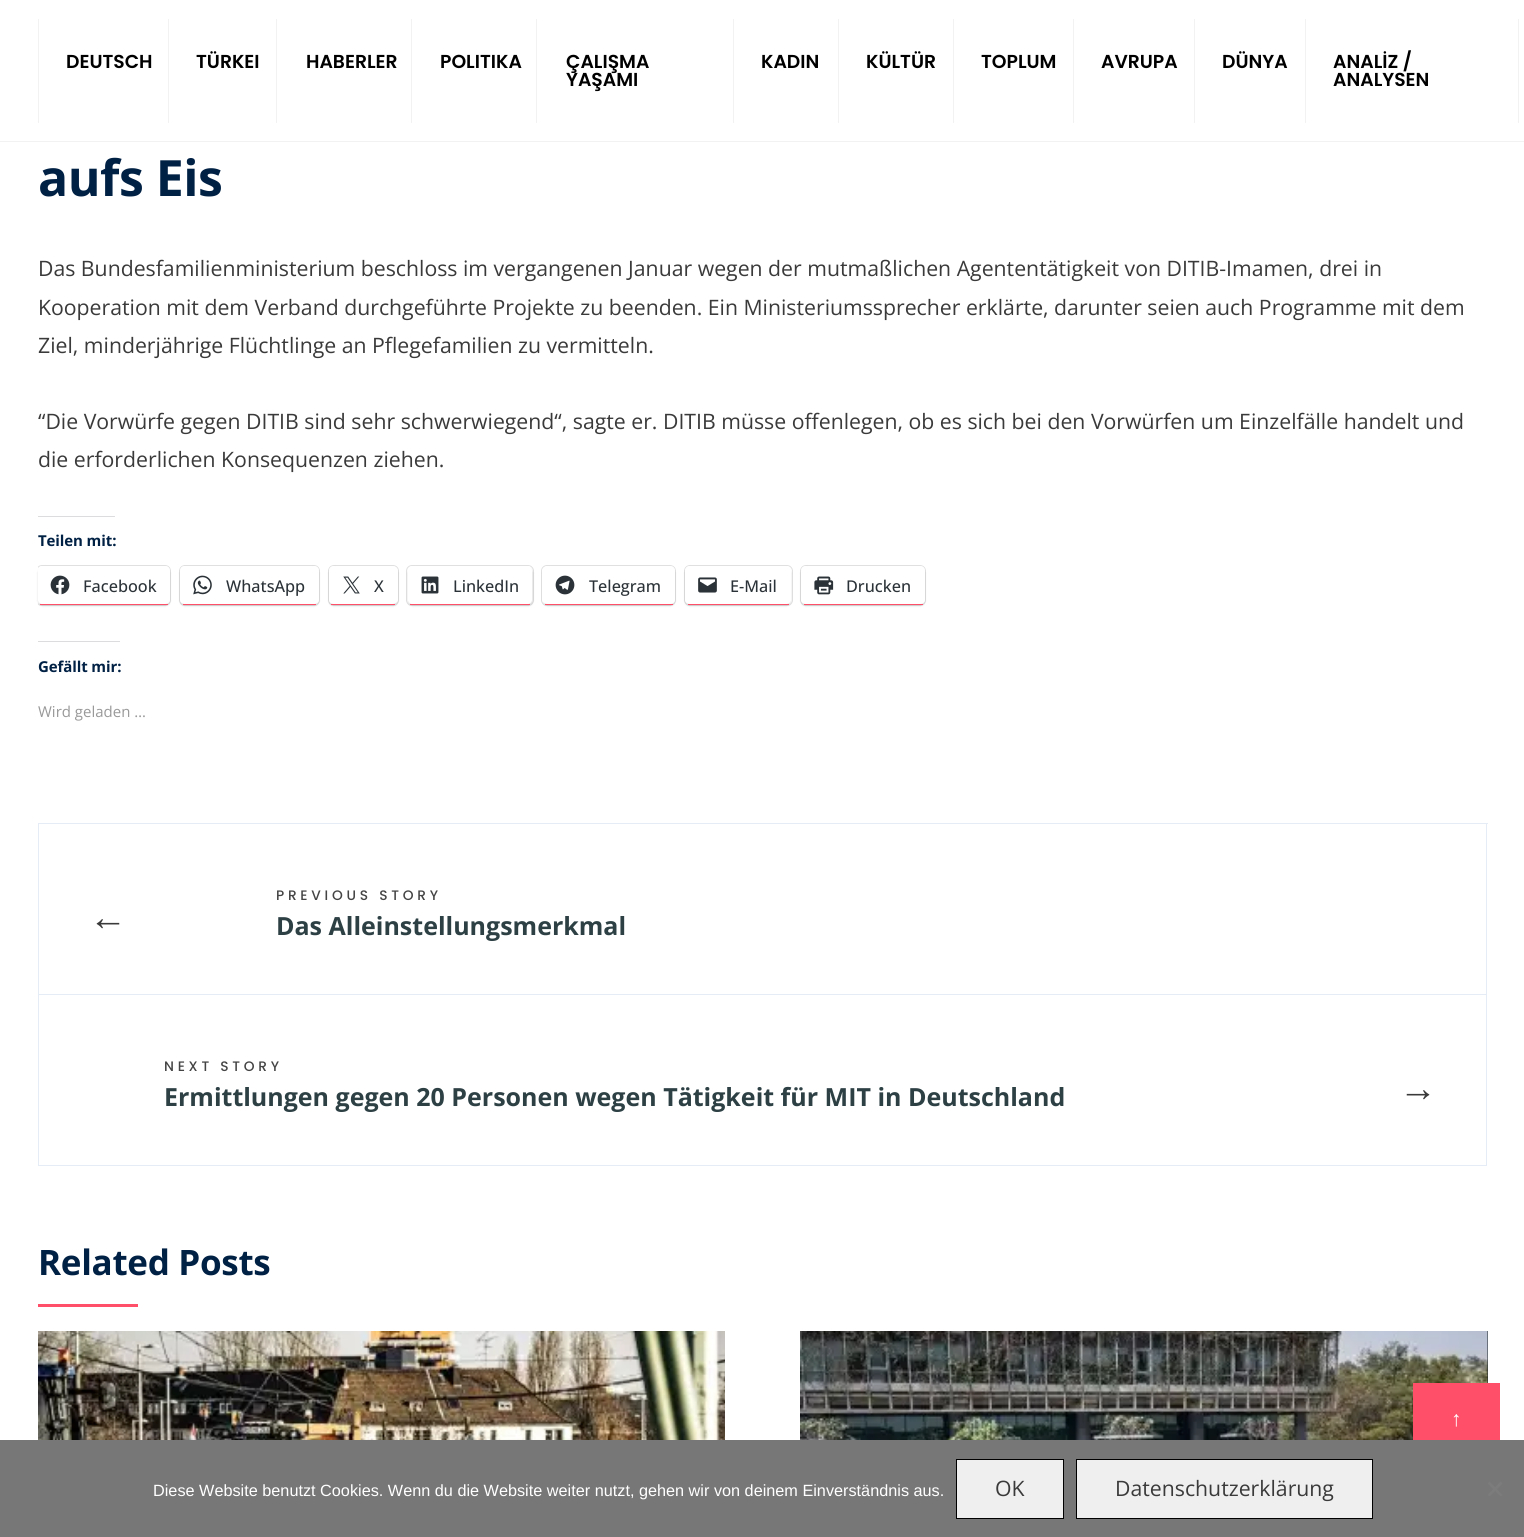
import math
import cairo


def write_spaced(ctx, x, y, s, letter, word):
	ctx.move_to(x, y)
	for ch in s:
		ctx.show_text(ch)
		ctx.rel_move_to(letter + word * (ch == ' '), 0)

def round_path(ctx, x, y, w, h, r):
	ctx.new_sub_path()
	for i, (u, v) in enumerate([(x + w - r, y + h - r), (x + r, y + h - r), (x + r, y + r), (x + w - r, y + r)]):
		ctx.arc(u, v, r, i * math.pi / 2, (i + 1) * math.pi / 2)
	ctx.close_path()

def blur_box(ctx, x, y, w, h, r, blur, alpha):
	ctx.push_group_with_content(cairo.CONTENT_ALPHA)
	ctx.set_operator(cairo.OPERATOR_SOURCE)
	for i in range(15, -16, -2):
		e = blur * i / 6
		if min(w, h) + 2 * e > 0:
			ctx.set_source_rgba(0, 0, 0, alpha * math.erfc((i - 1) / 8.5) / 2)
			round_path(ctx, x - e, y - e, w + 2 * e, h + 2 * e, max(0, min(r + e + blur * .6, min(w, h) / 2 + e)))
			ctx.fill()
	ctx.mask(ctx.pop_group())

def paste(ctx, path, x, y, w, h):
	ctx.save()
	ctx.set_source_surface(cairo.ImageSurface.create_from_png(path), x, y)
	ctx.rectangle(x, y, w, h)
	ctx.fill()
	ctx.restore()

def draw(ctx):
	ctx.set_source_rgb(1, 1, 1)
	ctx.paint()
	ctx.set_source_rgb(0.949, 0.949, 0.949)
	ctx.rectangle(0, 141, 1524, 1)
	ctx.rectangle(168, 19, 1, 104)
	ctx.rectangle(38, 19, 1, 104)
	ctx.fill()
	ctx.select_font_face('Poppins SemiBold')
	ctx.set_font_size(18.75)
	ctx.set_source_rgb(0, 0, 0)
	ctx.move_to(66, 68)
	ctx.show_text('DEUTSCH')
	ctx.set_source_rgb(0.949, 0.949, 0.949)
	ctx.rectangle(276, 19, 1, 104)
	ctx.fill()
	ctx.set_source_rgb(0, 0, 0)
	ctx.move_to(196, 68)
	ctx.show_text('TÜRKEI')
	ctx.set_source_rgb(0.949, 0.949, 0.949)
	ctx.rectangle(411, 19, 1, 104)
	ctx.fill()
	ctx.set_source_rgb(0, 0, 0)
	ctx.move_to(306, 68)
	ctx.show_text('HABERLER')
	ctx.set_source_rgb(0.949, 0.949, 0.949)
	ctx.rectangle(536, 19, 1, 104)
	ctx.fill()
	ctx.set_source_rgb(0, 0, 0)
	ctx.move_to(440, 68)
	ctx.show_text('POLITIKA')
	ctx.set_source_rgb(0.949, 0.949, 0.949)
	ctx.rectangle(733, 19, 1, 104)
	ctx.fill()
	ctx.set_source_rgb(0, 0, 0)
	ctx.move_to(566, 68)
	ctx.show_text('ÇALIŞMA')
	ctx.move_to(566, 86)
	ctx.show_text('YAŞAMI')
	ctx.set_source_rgb(0.949, 0.949, 0.949)
	ctx.rectangle(838, 19, 1, 104)
	ctx.fill()
	ctx.set_source_rgb(0, 0, 0)
	ctx.move_to(761, 68)
	ctx.show_text('KADIN')
	ctx.set_source_rgb(0.949, 0.949, 0.949)
	ctx.rectangle(953, 19, 1, 104)
	ctx.fill()
	ctx.set_source_rgb(0, 0, 0)
	ctx.move_to(866, 68)
	ctx.show_text('KÜLTÜR')
	ctx.set_source_rgb(0.949, 0.949, 0.949)
	ctx.rectangle(1073, 19, 1, 104)
	ctx.fill()
	ctx.set_source_rgb(0, 0, 0)
	ctx.move_to(981, 68)
	ctx.show_text('TOPLUM')
	ctx.set_source_rgb(0.949, 0.949, 0.949)
	ctx.rectangle(1194, 19, 1, 104)
	ctx.fill()
	ctx.set_source_rgb(0, 0, 0)
	ctx.move_to(1101, 68)
	ctx.show_text('AVRUPA')
	ctx.set_source_rgb(0.949, 0.949, 0.949)
	ctx.rectangle(1305, 19, 1, 104)
	ctx.fill()
	ctx.set_source_rgb(0, 0, 0)
	ctx.move_to(1222, 68)
	ctx.show_text('DÜNYA')
	ctx.set_source_rgb(0.949, 0.949, 0.949)
	ctx.rectangle(1518, 19, 1, 104)
	ctx.fill()
	ctx.set_source_rgb(0, 0, 0)
	ctx.move_to(1333, 68)
	ctx.show_text('ANALİZ /')
	ctx.move_to(1333, 86)
	ctx.show_text('ANALYSEN')
	ctx.select_font_face('Open Sans', cairo.FONT_SLANT_NORMAL, cairo.FONT_WEIGHT_BOLD)
	ctx.set_font_size(50)
	ctx.set_source_rgb(0, 0.125, 0.267)
	write_spaced(ctx, 38, 196, 'aufs Eis', -0.5, 0)
	ctx.select_font_face('Open Sans')
	ctx.set_font_size(21.25)
	ctx.set_source_rgb(0.227, 0.227, 0.227)
	for x, y, s in [
		(38, 276, 'Das Bundesfamilienministerium beschloss im vergangenen Januar wegen der mutmaßlichen Agententätigkeit von DITIB-Imamen, drei in'),
		(38, 315, 'Kooperation mit dem Verband durchgeführte Projekte zu beenden. Ein Ministeriumssprecher erklärte, darunter seien auch Programme mit dem'),
		(38, 353, 'Ziel, minderjährige Flüchtlinge an Pflegefamilien zu vermitteln.'),
		(38, 429, '“Die Vorwürfe gegen DITIB sind sehr schwerwiegend“, sagte er. DITIB müsse offenlegen, ob es sich bei den Vorwürfen um Einzelfälle handelt und'),
		(38, 467, 'die erforderlichen Konsequenzen ziehen.'),
	]:
		ctx.move_to(x, y)
		ctx.show_text(s)
	ctx.set_source_rgb(0.863, 0.863, 0.871)
	ctx.rectangle(38, 516, 77, 1)
	ctx.fill()
	ctx.select_font_face('Open Sans', cairo.FONT_SLANT_NORMAL, cairo.FONT_WEIGHT_BOLD)
	ctx.set_font_size(15)
	ctx.set_source_rgb(0, 0.125, 0.267)
	write_spaced(ctx, 38, 546, 'Teilen mit:', -0.1, 0)
	ctx.save()
	ctx.rectangle(38, 0, 1450, 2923)
	ctx.clip()
	round_path(ctx, 36.5, 565.5, 134, 40, 5.5)
	ctx.set_source_rgb(0.878, 0.878, 0.878)
	ctx.set_line_width(1)
	ctx.stroke()
	ctx.restore()
	ctx.set_source_rgb(0, 0, 0)
	blur_box(ctx, 38, 568, 132, 38, 5, 1, 0.12)
	ctx.set_source_rgb(1, 1, 1)
	ctx.new_path()
	ctx.move_to(42, 566)
	ctx.line_to(165, 566)
	ctx.curve_to(168, 566, 170, 568, 170, 571)
	ctx.line_to(170, 600)
	ctx.curve_to(170, 602, 168, 604, 165, 604)
	ctx.line_to(42, 604)
	ctx.curve_to(40, 604, 38, 602, 38, 600)
	ctx.line_to(38, 571)
	ctx.curve_to(38, 568, 40, 566, 42, 566)
	ctx.close_path()
	ctx.fill()
	ctx.set_source_rgb(1, 0.31, 0.412)
	ctx.rectangle(40, 604, 128, 1)
	ctx.fill()
	paste(ctx, 'media/1.png', 50, 575, 20, 20)
	ctx.select_font_face('Open Sans Medium')
	ctx.set_font_size(16.25)
	ctx.set_source_rgb(0.173, 0.2, 0.22)
	ctx.move_to(83, 592)
	ctx.show_text('Facebook')
	round_path(ctx, 179.5, 565.5, 140, 40, 5.5)
	ctx.set_source_rgb(0.878, 0.878, 0.878)
	ctx.set_line_width(1)
	ctx.stroke()
	ctx.set_source_rgb(0, 0, 0)
	blur_box(ctx, 180, 568, 139, 38, 5, 1, 0.12)
	ctx.set_source_rgb(1, 1, 1)
	ctx.new_path()
	ctx.move_to(185, 566)
	ctx.line_to(314, 566)
	ctx.curve_to(317, 566, 319, 568, 319, 571)
	ctx.line_to(319, 600)
	ctx.curve_to(319, 602, 317, 604, 314, 604)
	ctx.line_to(185, 604)
	ctx.curve_to(182, 604, 180, 602, 180, 600)
	ctx.line_to(180, 571)
	ctx.curve_to(180, 568, 182, 566, 185, 566)
	ctx.close_path()
	ctx.fill()
	ctx.set_source_rgb(1, 0.31, 0.412)
	ctx.rectangle(183, 604, 133, 1)
	ctx.fill()
	paste(ctx, 'media/2.png', 193, 575, 19, 20)
	ctx.set_source_rgb(0.173, 0.2, 0.22)
	ctx.move_to(226, 592)
	ctx.show_text('WhatsApp')
	round_path(ctx, 328.5, 565.5, 70, 40, 5.5)
	ctx.set_source_rgb(0.878, 0.878, 0.878)
	ctx.stroke()
	ctx.set_source_rgb(0, 0, 0)
	blur_box(ctx, 329, 568, 69, 38, 5, 1, 0.12)
	ctx.set_source_rgb(1, 1, 1)
	ctx.new_path()
	ctx.move_to(334, 566)
	ctx.line_to(392, 566)
	ctx.curve_to(395, 566, 398, 568, 398, 571)
	ctx.line_to(398, 600)
	ctx.curve_to(398, 602, 395, 604, 392, 604)
	ctx.line_to(334, 604)
	ctx.curve_to(331, 604, 329, 602, 329, 600)
	ctx.line_to(329, 571)
	ctx.curve_to(329, 568, 331, 566, 334, 566)
	ctx.close_path()
	ctx.fill()
	ctx.set_source_rgb(1, 0.31, 0.412)
	ctx.rectangle(331, 604, 64, 1)
	ctx.fill()
	paste(ctx, 'media/3.png', 343, 576, 17, 18)
	ctx.set_source_rgb(0.173, 0.2, 0.22)
	ctx.move_to(374, 592)
	ctx.show_text('X')
	round_path(ctx, 406.5, 565.5, 127, 40, 5.5)
	ctx.set_source_rgb(0.878, 0.878, 0.878)
	ctx.stroke()
	ctx.set_source_rgb(0, 0, 0)
	blur_box(ctx, 408, 568, 125, 38, 5, 1, 0.12)
	ctx.set_source_rgb(1, 1, 1)
	ctx.new_path()
	ctx.move_to(412, 566)
	ctx.line_to(528, 566)
	ctx.curve_to(530, 566, 532, 568, 532, 571)
	ctx.line_to(532, 600)
	ctx.curve_to(532, 602, 530, 604, 528, 604)
	ctx.line_to(412, 604)
	ctx.curve_to(410, 604, 408, 602, 408, 600)
	ctx.line_to(408, 571)
	ctx.curve_to(408, 568, 410, 566, 412, 566)
	ctx.close_path()
	ctx.fill()
	ctx.set_source_rgb(1, 0.31, 0.412)
	ctx.rectangle(410, 604, 120, 1)
	ctx.fill()
	paste(ctx, 'media/4.png', 421, 576, 18, 18)
	ctx.set_source_rgb(0.173, 0.2, 0.22)
	ctx.move_to(453, 592)
	ctx.show_text('LinkedIn')
	round_path(ctx, 541.5, 565.5, 134, 40, 5.5)
	ctx.set_source_rgb(0.878, 0.878, 0.878)
	ctx.stroke()
	ctx.set_source_rgb(0, 0, 0)
	blur_box(ctx, 543, 568, 132, 38, 5, 1, 0.12)
	ctx.set_source_rgb(1, 1, 1)
	ctx.new_path()
	ctx.move_to(548, 566)
	ctx.line_to(670, 566)
	ctx.curve_to(673, 566, 675, 568, 675, 571)
	ctx.line_to(675, 600)
	ctx.curve_to(675, 602, 673, 604, 670, 604)
	ctx.line_to(548, 604)
	ctx.curve_to(545, 604, 542, 602, 542, 600)
	ctx.line_to(542, 571)
	ctx.curve_to(542, 568, 545, 566, 548, 566)
	ctx.close_path()
	ctx.fill()
	ctx.set_source_rgb(1, 0.31, 0.412)
	ctx.rectangle(545, 604, 128, 1)
	ctx.fill()
	paste(ctx, 'media/5.png', 555, 575, 20, 20)
	ctx.set_source_rgb(0.173, 0.2, 0.22)
	ctx.move_to(589, 592)
	ctx.show_text('Telegram')
	round_path(ctx, 684.5, 565.5, 108, 40, 5.5)
	ctx.set_source_rgb(0.878, 0.878, 0.878)
	ctx.stroke()
	ctx.set_source_rgb(0, 0, 0)
	blur_box(ctx, 685, 568, 106, 38, 5, 1, 0.12)
	ctx.set_source_rgb(1, 1, 1)
	ctx.new_path()
	ctx.move_to(690, 566)
	ctx.line_to(786, 566)
	ctx.curve_to(789, 566, 791, 568, 791, 571)
	ctx.line_to(791, 600)
	ctx.curve_to(791, 602, 789, 604, 786, 604)
	ctx.line_to(690, 604)
	ctx.curve_to(687, 604, 685, 602, 685, 600)
	ctx.line_to(685, 571)
	ctx.curve_to(685, 568, 687, 566, 690, 566)
	ctx.close_path()
	ctx.fill()
	ctx.set_source_rgb(1, 0.31, 0.412)
	ctx.rectangle(688, 604, 101, 1)
	ctx.fill()
	paste(ctx, 'media/6.png', 698, 577, 19, 16)
	ctx.set_source_rgb(0.173, 0.2, 0.22)
	ctx.move_to(730, 592)
	ctx.show_text('E-Mail')
	round_path(ctx, 800.5, 565.5, 125, 40, 5.5)
	ctx.set_source_rgb(0.878, 0.878, 0.878)
	ctx.stroke()
	ctx.set_source_rgb(0, 0, 0)
	blur_box(ctx, 801, 568, 124, 38, 5, 1, 0.12)
	ctx.set_source_rgb(1, 1, 1)
	ctx.new_path()
	ctx.move_to(806, 566)
	ctx.line_to(920, 566)
	ctx.curve_to(923, 566, 925, 568, 925, 571)
	ctx.line_to(925, 600)
	ctx.curve_to(925, 602, 923, 604, 920, 604)
	ctx.line_to(806, 604)
	ctx.curve_to(803, 604, 801, 602, 801, 600)
	ctx.line_to(801, 571)
	ctx.curve_to(801, 568, 803, 566, 806, 566)
	ctx.close_path()
	ctx.fill()
	ctx.set_source_rgb(1, 0.31, 0.412)
	ctx.rectangle(804, 604, 119, 1)
	ctx.fill()
	paste(ctx, 'media/7.png', 814, 576, 20, 19)
	ctx.set_source_rgb(0.173, 0.2, 0.22)
	ctx.move_to(846, 592)
	ctx.show_text('Drucken')
	ctx.set_source_rgb(0.863, 0.863, 0.871)
	ctx.rectangle(38, 641, 82, 1)
	ctx.fill()
	ctx.select_font_face('Open Sans', cairo.FONT_SLANT_NORMAL, cairo.FONT_WEIGHT_BOLD)
	ctx.set_font_size(15)
	ctx.set_source_rgb(0, 0.125, 0.267)
	write_spaced(ctx, 38, 672, 'Gefällt mir:', -0.1, 0)
	ctx.select_font_face('Open Sans')
	ctx.set_source_rgb(0.6, 0.6, 0.6)
	ctx.move_to(38, 717)
	ctx.show_text('Wird geladen …')
	ctx.set_source_rgb(0.902, 0.925, 0.961)
	ctx.rectangle(38, 823, 1450, 1)
	ctx.rectangle(1486, 823, 1, 343)
	ctx.rectangle(38, 823, 1, 343)
	ctx.rectangle(39, 994, 1447, 1)
	ctx.fill()
	ctx.select_font_face('Liberation Serif')
	ctx.set_font_size(38)
	ctx.set_source_rgb(0.227, 0.227, 0.227)
	ctx.move_to(89, 930)
	ctx.show_text('←')
	ctx.select_font_face('Poppins Medium')
	ctx.set_font_size(13.75)
	ctx.set_source_rgb(0.267, 0.267, 0.267)
	write_spaced(ctx, 276, 900, 'PREVIOUS STORY', 3.75, 0)
	ctx.select_font_face('Open Sans', cairo.FONT_SLANT_NORMAL, cairo.FONT_WEIGHT_BOLD)
	ctx.set_font_size(25)
	ctx.set_source_rgb(0.176, 0.251, 0.267)
	ctx.move_to(276, 935)
	ctx.show_text('Das Alleinstellungsmerkmal')
	ctx.set_source_rgb(0.902, 0.925, 0.961)
	ctx.rectangle(39, 1165, 1447, 1)
	ctx.fill()
	ctx.select_font_face('Poppins Medium')
	ctx.set_font_size(13.75)
	ctx.set_source_rgb(0.267, 0.267, 0.267)
	write_spaced(ctx, 164, 1071, 'NEXT STORY', 3.75, 0)
	ctx.select_font_face('Open Sans', cairo.FONT_SLANT_NORMAL, cairo.FONT_WEIGHT_BOLD)
	ctx.set_font_size(25)
	ctx.set_source_rgb(0.176, 0.251, 0.267)
	ctx.move_to(164, 1106)
	ctx.show_text('Ermittlungen gegen 20 Personen wegen Tätigkeit für MIT in Deutschland')
	ctx.select_font_face('Liberation Serif')
	ctx.set_font_size(38)
	ctx.set_source_rgb(0.227, 0.227, 0.227)
	ctx.move_to(1399, 1101)
	ctx.show_text('→')
	ctx.select_font_face('Open Sans', cairo.FONT_SLANT_NORMAL, cairo.FONT_WEIGHT_BOLD)
	ctx.set_font_size(35)
	ctx.set_source_rgb(0, 0.125, 0.267)
	write_spaced(ctx, 38, 1275, 'Related Posts', -0.3, 0)
	ctx.set_source_rgb(1, 0.31, 0.412)
	ctx.rectangle(38, 1304, 100, 3)
	ctx.fill()
	paste(ctx, 'media/8.png', 38, 1331, 687, 109)
	ctx.set_source_rgb(0.098, 0.129, 0.149)
	ctx.rectangle(1487, 1331, 1, 52)
	ctx.fill()
	paste(ctx, 'media/9.png', 800, 1331, 688, 109)
	ctx.set_source_rgb(1, 0.31, 0.412)
	ctx.rectangle(1413, 1383, 87, 57)
	ctx.fill()
	ctx.select_font_face('Liberation Serif')
	ctx.set_font_size(21.25)
	ctx.set_source_rgb(1, 1, 1)
	ctx.move_to(1451, 1426)
	ctx.show_text('↑')
	ctx.set_source_rgb(0.467, 0.467, 0.467)
	ctx.rectangle(0, 1440, 1524, 97)
	ctx.fill()
	ctx.select_font_face('Liberation Sans')
	ctx.set_font_size(16.25)
	ctx.set_source_rgb(1, 1, 1)
	ctx.move_to(153, 1496)
	ctx.show_text('Diese Website benutzt Cookies. Wenn du die Website weiter nutzt, gehen wir von deinem Einverständnis aus.')
	ctx.set_source_rgb(0.937, 0.937, 0.937)
	ctx.rectangle(956.5, 1459.5, 107, 59)
	ctx.fill_preserve()
	ctx.set_source_rgb(0, 0, 0)
	ctx.stroke()
	ctx.select_font_face('Open Sans')
	ctx.set_font_size(21.25)
	ctx.set_source_rgb(0.227, 0.227, 0.227)
	ctx.move_to(995, 1496)
	ctx.show_text('OK')
	ctx.set_source_rgb(0.937, 0.937, 0.937)
	ctx.rectangle(1076.5, 1459.5, 296, 59)
	ctx.fill_preserve()
	ctx.set_source_rgb(0, 0, 0)
	ctx.stroke()
	ctx.set_source_rgb(0.227, 0.227, 0.227)
	ctx.move_to(1115, 1496)
	ctx.show_text('Datenschutzerklärung')
	ctx.set_source_rgb(0.486, 0.486, 0.486)
	ctx.new_path()
	ctx.move_to(1500.5, 1481.5)
	ctx.line_to(1502.5, 1483.5)
	ctx.line_to(1489.5, 1496.5)
	ctx.line_to(1487.5, 1495)
	ctx.close_path()
	ctx.fill()
	ctx.new_path()
	ctx.move_to(1487.5, 1483.5)
	ctx.line_to(1489.5, 1481.5)
	ctx.line_to(1502.5, 1495)
	ctx.line_to(1500.5, 1496.5)
	ctx.close_path()
	ctx.fill()


surface = cairo.ImageSurface(cairo.FORMAT_RGB24, 1524, 1537)
ctx = cairo.Context(surface)
options = cairo.FontOptions()
options.set_hint_metrics(cairo.HINT_METRICS_OFF)
options.set_hint_style(cairo.HINT_STYLE_NONE)
ctx.set_font_options(options)
ctx.set_miter_limit(4)
draw(ctx)
surface.write_to_png('image.png')
